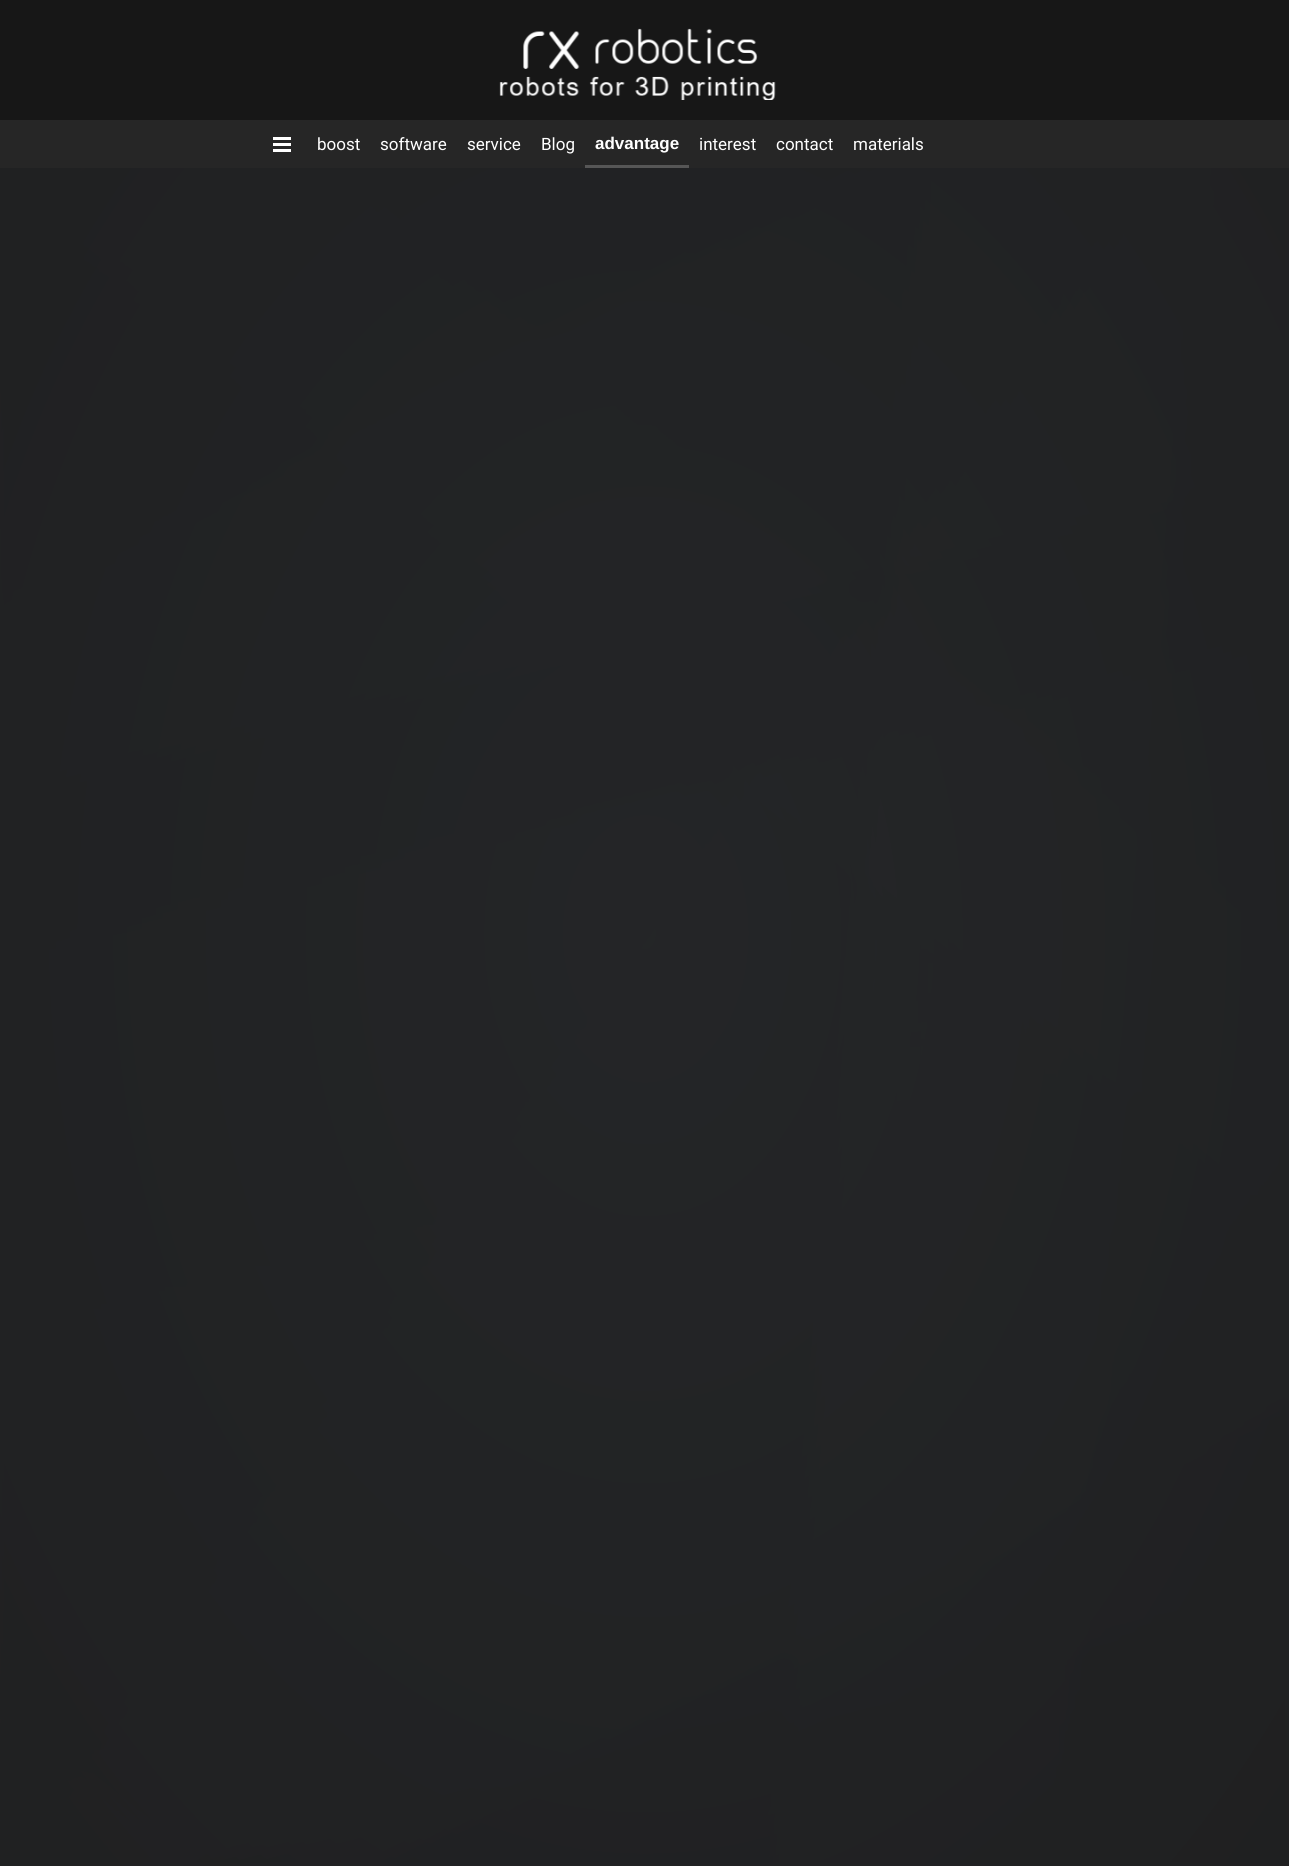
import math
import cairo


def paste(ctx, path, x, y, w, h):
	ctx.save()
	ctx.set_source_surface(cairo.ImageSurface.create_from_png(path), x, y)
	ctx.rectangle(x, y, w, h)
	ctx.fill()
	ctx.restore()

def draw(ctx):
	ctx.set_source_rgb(1, 1, 1)
	ctx.paint()
	ctx.set_source_rgb(0.09, 0.09, 0.09)
	ctx.rectangle(0, 0, 1289, 120)
	ctx.fill()
	paste(ctx, 'media/1.png', 499, 28, 277, 72)
	ctx.set_source_rgb(0.149, 0.149, 0.149)
	ctx.rectangle(0, 120, 1289, 48)
	ctx.fill()
	ctx.set_source_rgb(1, 1, 1)
	ctx.rectangle(273, 137, 18, 3)
	ctx.rectangle(273, 143, 18, 3)
	ctx.rectangle(273, 149, 18, 3)
	ctx.fill()
	ctx.select_font_face('Roboto')
	ctx.set_font_size(17)
	for x, y, s in [
		(317, 150, 'boost'),
		(380, 150, 'software'),
		(467, 150, 'service'),
		(541, 150, 'Blog'),
	]:
		ctx.move_to(x, y)
		ctx.show_text(s)
	ctx.select_font_face('Liberation Sans', cairo.FONT_SLANT_NORMAL, cairo.FONT_WEIGHT_BOLD)
	ctx.move_to(595, 149)
	ctx.show_text('advantage')
	ctx.set_source_rgb(0.337, 0.337, 0.337)
	ctx.rectangle(585, 165, 104, 3)
	ctx.fill()
	ctx.select_font_face('Roboto')
	ctx.set_source_rgb(1, 1, 1)
	for x, y, s in [
		(699, 150, 'interest'),
		(776, 150, 'contact'),
		(853, 150, 'materials'),
	]:
		ctx.move_to(x, y)
		ctx.show_text(s)
	paste(ctx, 'media/2.png', 0, 168, 1289, 1698)
	gradient = cairo.RadialGradient(0, 0, 0, 0, 0, 1)
	gradient.set_matrix(cairo.Matrix(1 / 911, 0, 0, 1 / 1319, -1 * 645 / 911, -1 * 933 / 1319))
	gradient.add_color_stop_rgba(0, 0, 0, 0, 0)
	gradient.add_color_stop_rgba(1, 0, 0, 0, 0.5)
	ctx.set_source(gradient)
	ctx.rectangle(0, 168, 1289, 1698)
	ctx.fill()
	ctx.set_source_rgba(0.122, 0.122, 0.122, 0.9)
	ctx.rectangle(0, 168, 1289, 1698)
	ctx.fill()


surface = cairo.ImageSurface(cairo.FORMAT_RGB24, 1289, 1866)
ctx = cairo.Context(surface)
options = cairo.FontOptions()
options.set_hint_metrics(cairo.HINT_METRICS_OFF)
options.set_hint_style(cairo.HINT_STYLE_NONE)
ctx.set_font_options(options)
ctx.set_miter_limit(4)
draw(ctx)
surface.write_to_png('image.png')
